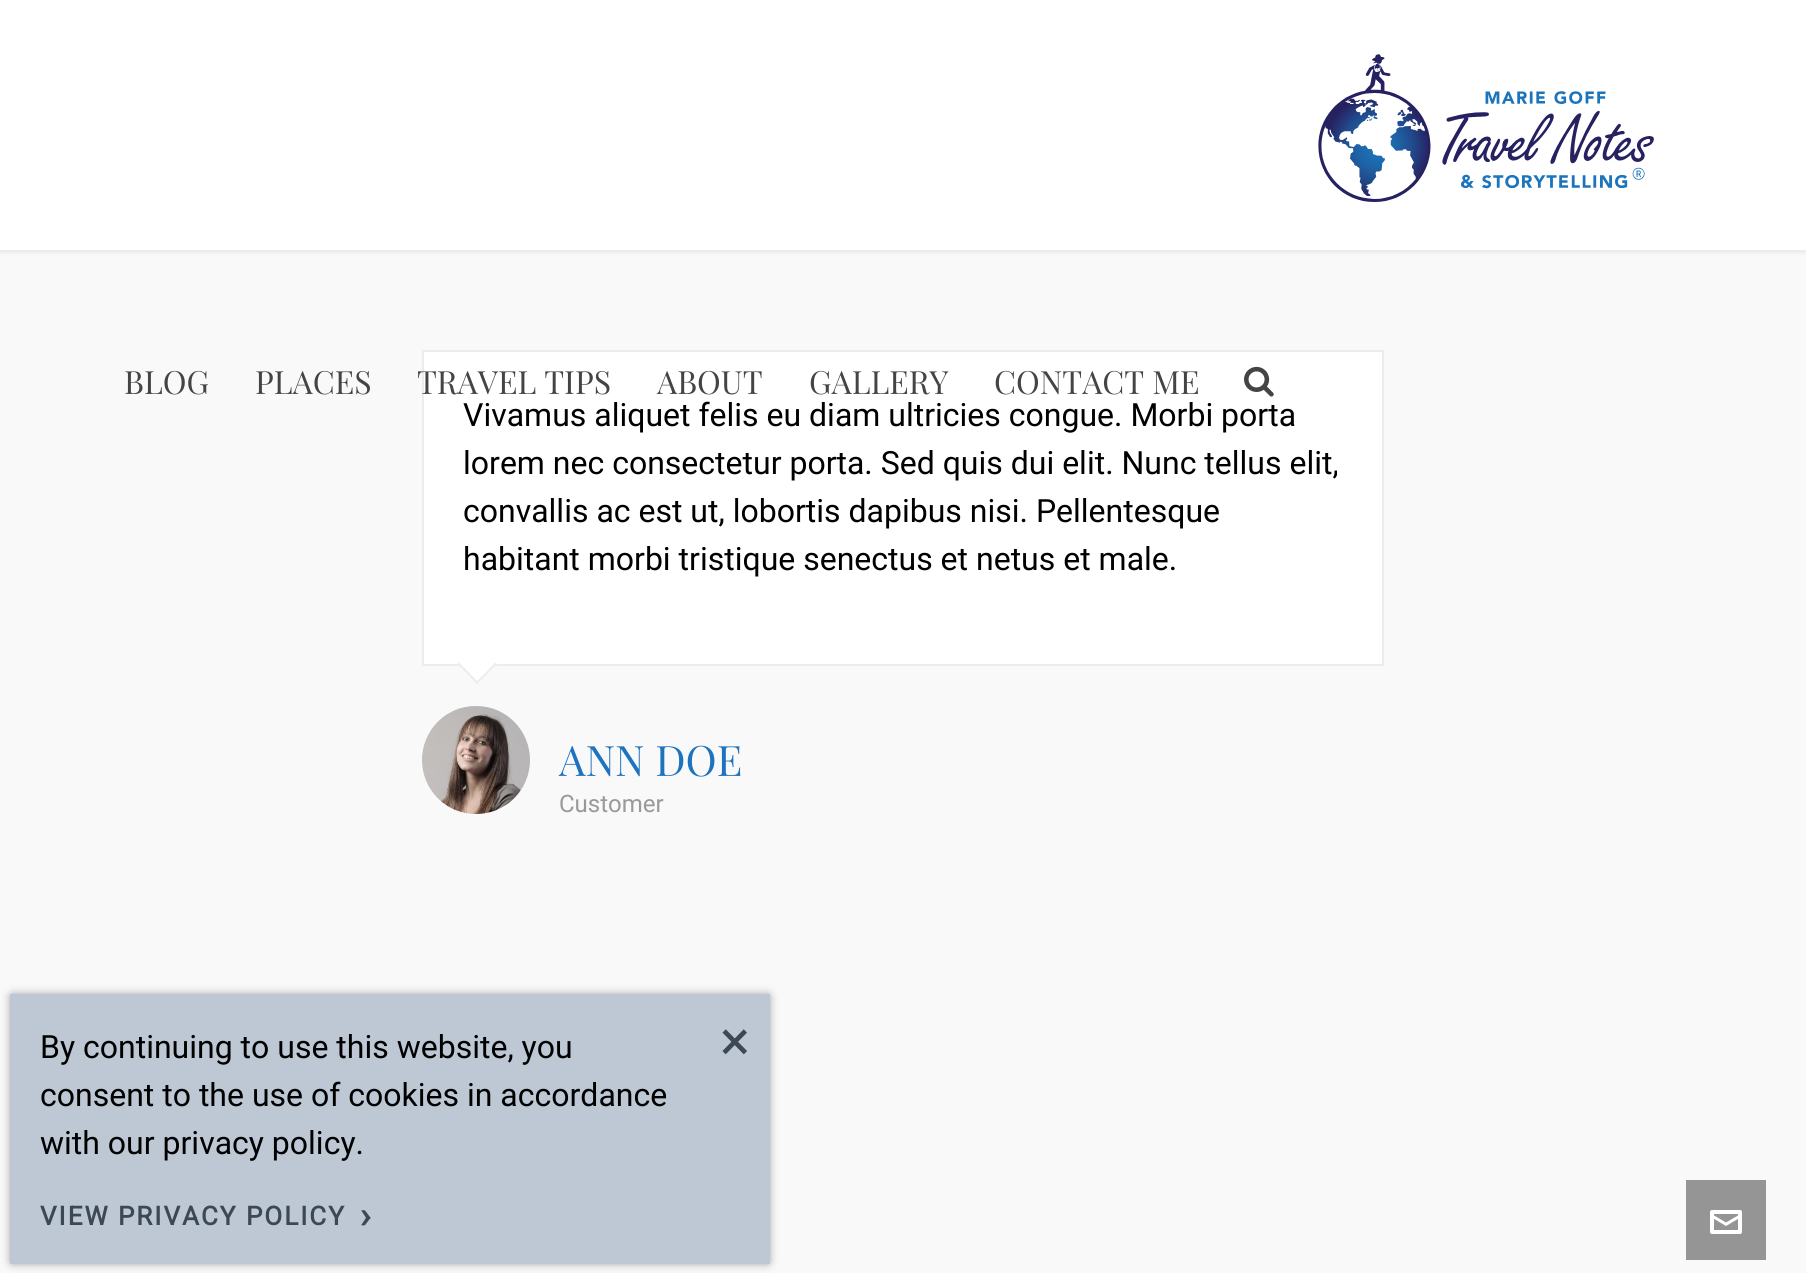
import math
import cairo


def write_spaced(ctx, x, y, s, letter, word):
	ctx.move_to(x, y)
	for ch in s:
		ctx.show_text(ch)
		ctx.rel_move_to(letter + word * (ch == ' '), 0)

def round_path(ctx, x, y, w, h, r):
	ctx.new_sub_path()
	for i, (u, v) in enumerate([(x + w - r, y + h - r), (x + r, y + h - r), (x + r, y + r), (x + w - r, y + r)]):
		ctx.arc(u, v, r, i * math.pi / 2, (i + 1) * math.pi / 2)
	ctx.close_path()

def blur_box(ctx, x, y, w, h, r, blur, alpha):
	ctx.push_group_with_content(cairo.CONTENT_ALPHA)
	ctx.set_operator(cairo.OPERATOR_SOURCE)
	for i in range(15, -16, -2):
		e = blur * i / 6
		if min(w, h) + 2 * e > 0:
			ctx.set_source_rgba(0, 0, 0, alpha * math.erfc((i - 1) / 8.5) / 2)
			round_path(ctx, x - e, y - e, w + 2 * e, h + 2 * e, max(0, min(r + e + blur * .6, min(w, h) / 2 + e)))
			ctx.fill()
	ctx.mask(ctx.pop_group())

def paste(ctx, path, x, y, w, h):
	ctx.save()
	ctx.set_source_surface(cairo.ImageSurface.create_from_png(path), x, y)
	ctx.rectangle(x, y, w, h)
	ctx.fill()
	ctx.restore()

def draw(ctx):
	ctx.set_source_rgb(0.976, 0.976, 0.976)
	ctx.paint()
	ctx.set_source_rgb(0, 0, 0)
	blur_box(ctx, 0, 2, 1806, 250, 0, 2, 0.1)
	ctx.set_source_rgb(1, 1, 1)
	ctx.rectangle(0, 0, 1806, 250)
	ctx.fill()
	ctx.set_source_rgb(0.922, 0.922, 0.922)
	ctx.rectangle(0, 250, 1806, 2)
	ctx.fill()
	paste(ctx, 'media/1.png', 1318, 54, 336, 148)
	ctx.select_font_face('Playfair Display')
	ctx.set_font_size(32)
	ctx.set_source_rgb(0.267, 0.267, 0.267)
	ctx.move_to(124, 394)
	ctx.show_text('BLOG')
	ctx.move_to(255, 394)
	ctx.show_text('PLACES')
	ctx.set_source_rgb(1, 1, 1)
	ctx.rectangle(423, 351, 960, 314)
	ctx.fill_preserve()
	ctx.set_source_rgb(0.922, 0.922, 0.922)
	ctx.stroke()
	ctx.set_source_rgb(0.267, 0.267, 0.267)
	for x, y, s in [
		(417, 394, 'TRAVEL TIPS'),
		(657, 394, 'ABOUT'),
		(809, 394, 'GALLERY'),
		(994, 394, 'CONTACT ME'),
	]:
		ctx.move_to(x, y)
		ctx.show_text(s)
	paste(ctx, 'media/2.png', 1244, 366, 30, 31)
	ctx.select_font_face('Roboto')
	ctx.set_source_rgb(0, 0, 0)
	for x, y, s in [
		(463, 426, 'Vivamus aliquet felis eu diam ultricies congue. Morbi porta'),
		(463, 474, 'lorem nec consectetur porta. Sed quis dui elit. Nunc tellus elit,'),
		(463, 522, 'convallis ac est ut, lobortis dapibus nisi. Pellentesque'),
		(463, 570, 'habitant morbi tristique senectus et netus et male.'),
	]:
		ctx.move_to(x, y)
		ctx.show_text(s)
	ctx.set_source_rgb(1, 1, 1)
	ctx.new_path()
	ctx.move_to(477, 644)
	ctx.line_to(497, 664)
	ctx.line_to(477, 684)
	ctx.line_to(457.5, 664)
	ctx.close_path()
	ctx.fill()
	ctx.set_source_rgb(0.922, 0.922, 0.922)
	ctx.new_path()
	ctx.move_to(495.5, 662.5)
	ctx.line_to(497, 664)
	ctx.line_to(477, 684)
	ctx.line_to(476, 682.5)
	ctx.close_path()
	ctx.fill()
	ctx.new_path()
	ctx.move_to(459, 662.5)
	ctx.line_to(478.5, 682.5)
	ctx.line_to(477, 684)
	ctx.line_to(457.5, 664)
	ctx.close_path()
	ctx.fill()
	paste(ctx, 'media/3.png', 422, 706, 108, 108)
	ctx.select_font_face('Playfair Display')
	ctx.set_font_size(42)
	ctx.set_source_rgb(0.118, 0.451, 0.745)
	ctx.move_to(559, 776)
	ctx.show_text('ANN DOE')
	ctx.select_font_face('Roboto')
	ctx.set_font_size(24)
	ctx.set_source_rgb(0.6, 0.6, 0.6)
	ctx.move_to(559, 812)
	ctx.show_text('Customer')
	ctx.set_source_rgb(0.584, 0.584, 0.584)
	ctx.rectangle(1686, 1180, 80, 80)
	ctx.fill()
	paste(ctx, 'media/4.png', 1710, 1210, 32, 24)
	ctx.set_source_rgb(0, 0, 0)
	blur_box(ctx, 12, 996, 756, 266, 0, 5, 0.5)
	ctx.set_source_rgb(0.741, 0.784, 0.831)
	ctx.rectangle(10, 994, 760, 270)
	ctx.fill()
	ctx.set_font_size(32)
	ctx.set_source_rgb(0, 0, 0)
	for x, y, s in [
		(40, 1058, 'By continuing to use this website, you'),
		(40, 1106, 'consent to the use of cookies in accordance'),
		(40, 1154, 'with our privacy policy.'),
	]:
		ctx.move_to(x, y)
		ctx.show_text(s)
	ctx.set_font_size(56)
	ctx.set_source_rgb(0.231, 0.282, 0.337)
	ctx.move_to(720, 1060)
	ctx.show_text('×')
	ctx.select_font_face('Roboto', cairo.FONT_SLANT_NORMAL, cairo.FONT_WEIGHT_BOLD)
	ctx.set_font_size(26)
	write_spaced(ctx, 40, 1225, 'VIEW PRIVACY POLICY', 2, 0)
	ctx.set_font_size(36)
	write_spaced(ctx, 360, 1228, '›', 2, 0)


surface = cairo.ImageSurface(cairo.FORMAT_RGB24, 1806, 1273)
ctx = cairo.Context(surface)
options = cairo.FontOptions()
options.set_hint_metrics(cairo.HINT_METRICS_OFF)
options.set_hint_style(cairo.HINT_STYLE_NONE)
ctx.set_font_options(options)
ctx.set_miter_limit(4)
draw(ctx)
surface.write_to_png('image.png')
